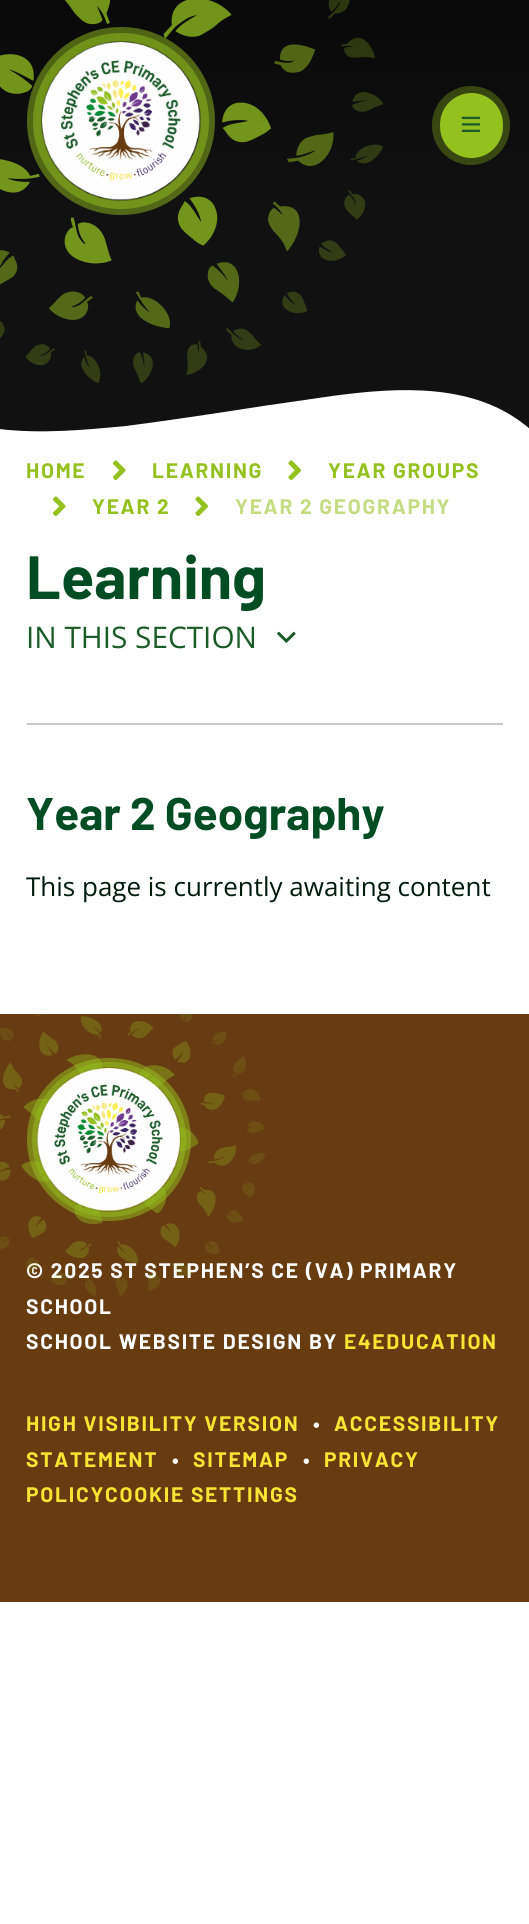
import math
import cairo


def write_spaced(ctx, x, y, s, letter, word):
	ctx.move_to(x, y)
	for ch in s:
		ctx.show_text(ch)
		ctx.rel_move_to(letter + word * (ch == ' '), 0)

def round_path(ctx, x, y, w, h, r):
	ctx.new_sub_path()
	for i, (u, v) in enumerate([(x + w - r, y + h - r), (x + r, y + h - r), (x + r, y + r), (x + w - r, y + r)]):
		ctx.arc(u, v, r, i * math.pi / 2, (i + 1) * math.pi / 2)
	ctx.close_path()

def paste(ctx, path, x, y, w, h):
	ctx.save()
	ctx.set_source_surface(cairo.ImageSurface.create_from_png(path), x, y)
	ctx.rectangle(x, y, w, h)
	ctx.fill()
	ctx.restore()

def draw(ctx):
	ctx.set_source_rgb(1, 1, 1)
	ctx.paint()
	gradient = cairo.LinearGradient(265, 0, 265, 434)
	gradient.add_color_stop_rgba(0, 0.035, 0.035, 0.035, 1)
	gradient.add_color_stop_rgba(0.5, 0.067, 0.067, 0.067, 1)
	gradient.add_color_stop_rgba(1, 0.067, 0.067, 0.067, 1)
	ctx.set_source(gradient)
	ctx.rectangle(0, 0, 529, 432)
	ctx.fill()
	ctx.set_source_rgb(1, 1, 1)
	ctx.new_path()
	ctx.move_to(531, 435)
	ctx.line_to(-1, 435)
	ctx.line_to(-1, 429)
	ctx.curve_to(41, 434, 84, 430, 126, 426)
	ctx.curve_to(172, 420, 218, 413, 263, 406)
	ctx.line_to(332, 396)
	ctx.curve_to(399, 387, 477, 382, 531, 430)
	ctx.close_path()
	ctx.fill()
	ctx.arc(121, 121, 86.5, 0, 2 * math.pi)
	ctx.set_source_rgba(0.584, 0.757, 0.122, 0.5)
	ctx.set_line_width(15)
	ctx.stroke()
	paste(ctx, 'media/1.png', 0, 0, 383, 383)
	paste(ctx, 'media/2.png', 42, 42, 158, 158)
	ctx.arc(121, 121, 84, 0, 2 * math.pi)
	ctx.set_line_width(8)
	ctx.stroke()
	round_path(ctx, 436, 90, 70, 71, 35)
	ctx.set_source_rgba(0.584, 0.757, 0.122, 0.32)
	ctx.stroke()
	ctx.set_source_rgb(0.584, 0.757, 0.122)
	round_path(ctx, 440, 93, 63, 65, 31.5)
	ctx.fill()
	paste(ctx, 'media/3.png', 461, 116, 19, 16)
	ctx.select_font_face('Barlow', cairo.FONT_SLANT_NORMAL, cairo.FONT_WEIGHT_BOLD)
	ctx.set_font_size(21)
	write_spaced(ctx, 26, 478, 'HOME', 1.7, 0)
	paste(ctx, 'media/4.png', 112, 460, 14, 21)
	write_spaced(ctx, 152, 478, 'LEARNING', 1.7, 0)
	paste(ctx, 'media/5.png', 288, 460, 14, 21)
	write_spaced(ctx, 328, 478, 'YEAR GROUPS', 1.7, 0)
	paste(ctx, 'media/4.png', 52, 496, 14, 21)
	write_spaced(ctx, 92, 514, 'YEAR 2', 1.7, 0)
	paste(ctx, 'media/5.png', 195, 496, 14, 21)
	ctx.set_source_rgb(0.769, 0.863, 0.51)
	write_spaced(ctx, 235, 514, 'YEAR 2 GEOGRAPHY', 1.7, 0)
	ctx.set_font_size(61)
	ctx.set_source_rgb(0, 0.302, 0.141)
	ctx.move_to(26, 599)
	ctx.show_text('Learning')
	ctx.select_font_face('Open Sans')
	ctx.set_font_size(29.75)
	ctx.set_source_rgb(0.102, 0.357, 0.157)
	ctx.move_to(26, 648)
	ctx.show_text('IN THIS SECTION')
	paste(ctx, 'media/6.png', 277, 631, 19, 12)
	ctx.set_source_rgb(0.788, 0.788, 0.788)
	ctx.rectangle(27, 723, 476, 2)
	ctx.fill()
	ctx.select_font_face('Barlow', cairo.FONT_SLANT_NORMAL, cairo.FONT_WEIGHT_BOLD)
	ctx.set_font_size(45.75)
	ctx.set_source_rgb(0, 0.302, 0.141)
	ctx.move_to(26, 830)
	ctx.show_text('Year 2 Geography')
	ctx.select_font_face('Open Sans')
	ctx.set_font_size(26)
	ctx.set_source_rgb(0, 0.102, 0.047)
	ctx.move_to(26, 896)
	ctx.show_text('This page is currently awaiting content')
	ctx.set_source_rgb(0.408, 0.235, 0.067)
	ctx.rectangle(0, 1014, 529, 588)
	ctx.fill()
	round_path(ctx, 32.5, 1063.5, 153, 152, 76)
	ctx.set_source_rgb(0.498, 0.498, 0.094)
	ctx.set_line_width(11)
	ctx.stroke()
	ctx.select_font_face('Barlow', cairo.FONT_SLANT_NORMAL, cairo.FONT_WEIGHT_BOLD)
	ctx.set_font_size(21)
	ctx.set_source_rgb(1, 1, 1)
	write_spaced(ctx, 26, 1278, '© 2025 ST STEPHEN’S CE (VA) PRIMARY', 1.7, 0)
	paste(ctx, 'media/7.png', 0, 1014, 266, 282)
	paste(ctx, 'media/8.png', 37, 1068, 143, 143)
	round_path(ctx, 34.5, 1064.5, 149, 150, 74.5)
	ctx.set_source_rgba(0.584, 0.757, 0.122, 0.5)
	ctx.set_line_width(5)
	ctx.stroke()
	ctx.set_source_rgb(1, 1, 1)
	write_spaced(ctx, 26, 1314, 'SCHOOL', 1.7, 0)
	write_spaced(ctx, 26, 1349, 'SCHOOL WEBSITE DESIGN BY', 1.7, 0)
	ctx.set_source_rgb(0.969, 0.894, 0.196)
	write_spaced(ctx, 344, 1349, 'E4EDUCATION', 1.7, 0)
	write_spaced(ctx, 26, 1431, 'HIGH VISIBILITY VERSION', 1.7, 0)
	ctx.set_source_rgb(1, 1, 1)
	write_spaced(ctx, 313, 1431, '•', 1.7, 0)
	ctx.set_source_rgb(0.969, 0.894, 0.196)
	write_spaced(ctx, 334, 1431, 'ACCESSIBILITY', 1.7, 0)
	write_spaced(ctx, 26, 1467, 'STATEMENT', 1.7, 0)
	ctx.set_source_rgb(1, 1, 1)
	write_spaced(ctx, 172, 1467, '•', 1.7, 0)
	ctx.set_source_rgb(0.969, 0.894, 0.196)
	write_spaced(ctx, 193, 1467, 'SITEMAP', 1.7, 0)
	ctx.set_source_rgb(1, 1, 1)
	write_spaced(ctx, 303, 1467, '•', 1.7, 0)
	ctx.set_source_rgb(0.969, 0.894, 0.196)
	write_spaced(ctx, 324, 1467, 'PRIVACY', 1.7, 0)
	write_spaced(ctx, 26, 1502, 'POLICYCOOKIE SETTINGS', 1.7, 0)


surface = cairo.ImageSurface(cairo.FORMAT_RGB24, 529, 1924)
ctx = cairo.Context(surface)
options = cairo.FontOptions()
options.set_hint_metrics(cairo.HINT_METRICS_OFF)
options.set_hint_style(cairo.HINT_STYLE_NONE)
ctx.set_font_options(options)
ctx.set_miter_limit(4)
draw(ctx)
surface.write_to_png('image.png')
